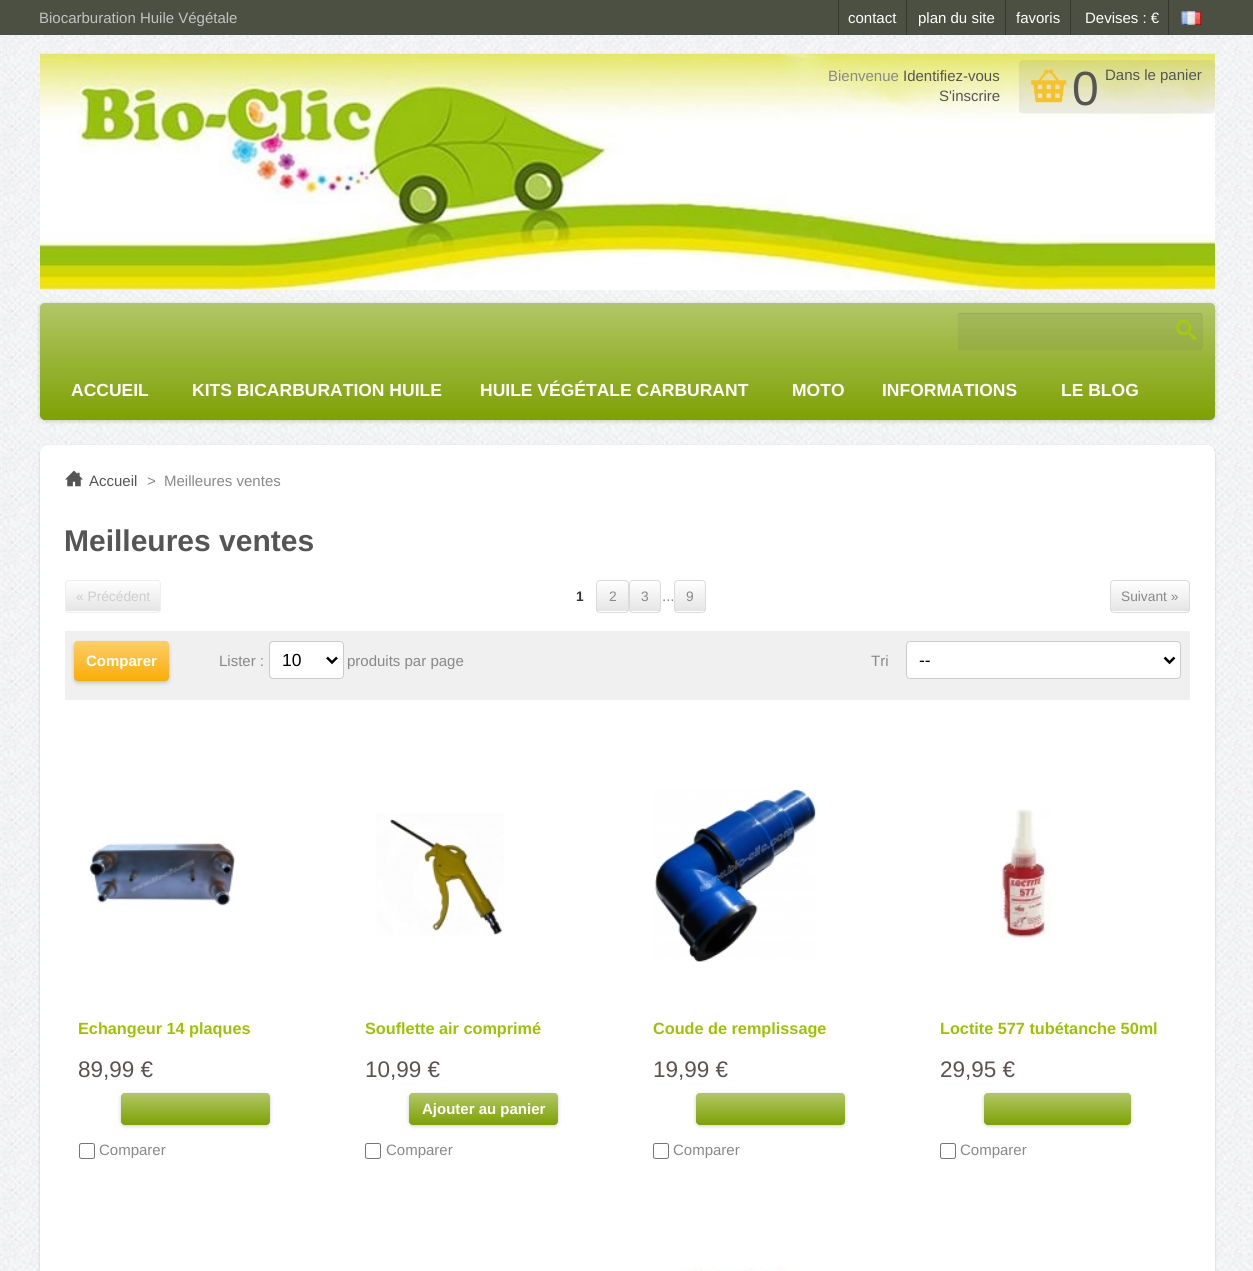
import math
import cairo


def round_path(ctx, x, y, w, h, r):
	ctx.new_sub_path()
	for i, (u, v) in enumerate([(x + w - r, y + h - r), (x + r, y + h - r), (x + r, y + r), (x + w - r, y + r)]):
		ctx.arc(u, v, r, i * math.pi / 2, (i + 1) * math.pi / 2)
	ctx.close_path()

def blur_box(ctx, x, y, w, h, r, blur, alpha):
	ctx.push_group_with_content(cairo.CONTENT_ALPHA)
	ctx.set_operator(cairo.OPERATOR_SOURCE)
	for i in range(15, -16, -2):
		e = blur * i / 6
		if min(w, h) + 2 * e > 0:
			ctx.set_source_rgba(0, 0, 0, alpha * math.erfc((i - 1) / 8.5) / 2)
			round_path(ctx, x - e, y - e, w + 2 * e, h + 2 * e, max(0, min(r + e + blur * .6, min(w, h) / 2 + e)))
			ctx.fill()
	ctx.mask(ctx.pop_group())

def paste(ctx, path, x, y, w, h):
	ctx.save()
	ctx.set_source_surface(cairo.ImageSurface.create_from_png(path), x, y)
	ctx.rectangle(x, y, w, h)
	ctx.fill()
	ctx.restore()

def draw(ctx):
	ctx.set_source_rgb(1, 1, 1)
	ctx.paint()
	paste(ctx, 'media/1.png', 0, 35, 1253, 1236)
	ctx.set_source_rgb(0.294, 0.314, 0.259)
	ctx.rectangle(0, 0, 1253, 35)
	ctx.fill()
	ctx.select_font_face('Liberation Sans')
	ctx.set_font_size(15)
	ctx.set_source_rgb(0.761, 0.761, 0.761)
	ctx.move_to(39, 23)
	ctx.show_text('Biocarburation Huile Végétale')
	paste(ctx, 'media/2.png', 40, 53, 1175, 237)
	ctx.set_source_rgb(0.204, 0.22, 0.176)
	ctx.rectangle(906, 0, 1, 35)
	ctx.fill()
	ctx.rectangle(838, 0, 1, 35)
	ctx.fill()
	ctx.set_source_rgb(1, 1, 1)
	ctx.move_to(848, 23)
	ctx.show_text('contact')
	ctx.set_source_rgb(0.204, 0.22, 0.176)
	ctx.rectangle(1005, 0, 1, 35)
	ctx.fill()
	ctx.set_source_rgb(1, 1, 1)
	ctx.move_to(918, 23)
	ctx.show_text('plan du site')
	ctx.set_source_rgb(0.204, 0.22, 0.176)
	ctx.rectangle(1070, 0, 1, 35)
	ctx.fill()
	ctx.set_source_rgb(1, 1, 1)
	ctx.move_to(1016, 23)
	ctx.show_text('favoris')
	ctx.set_source_rgb(0.204, 0.22, 0.176)
	ctx.rectangle(1168, 0, 1, 35)
	ctx.fill()
	ctx.set_source_rgb(1, 1, 1)
	ctx.move_to(1085, 23)
	ctx.show_text('Devises : €')
	paste(ctx, 'media/3.png', 1181, 11, 21, 14)
	ctx.set_source_rgb(0.533, 0.533, 0.533)
	ctx.move_to(828, 81)
	ctx.show_text('Bienvenue')
	ctx.set_source_rgb(0.333, 0.333, 0.333)
	ctx.move_to(903, 81)
	ctx.show_text('Identifiez-vous')
	ctx.move_to(939, 101)
	ctx.show_text('S\'inscrire')
	paste(ctx, 'media/4.png', 1019, 60, 196, 54)
	paste(ctx, 'media/5.png', 1031, 69, 36, 34)
	ctx.set_font_size(48)
	ctx.move_to(1072, 105)
	ctx.show_text('0')
	ctx.set_font_size(15)
	ctx.move_to(1105, 80)
	ctx.show_text('Dans le panier')
	ctx.set_source_rgb(0, 0, 0)
	blur_box(ctx, 40, 304, 1175, 117, 5, 2, 0.2)
	ctx.set_source_rgb(0.494, 0.631, 0.012)
	round_path(ctx, 40, 303, 1175, 117, 5)
	ctx.fill()
	gradient = cairo.LinearGradient(628, 302, 628, 420)
	gradient.add_color_stop_rgba(0, 1, 1, 1, 0.4)
	gradient.add_color_stop_rgba(1, 1, 1, 1, 0)
	ctx.set_source(gradient)
	round_path(ctx, 40, 303, 1175, 117, 5)
	ctx.fill()
	ctx.set_source_rgba(0.345, 0.345, 0.345, 0.1)
	ctx.rectangle(958, 313, 212, 37)
	ctx.fill()
	ctx.set_source_rgb(0.596, 0.667, 0.337)
	ctx.new_path()
	ctx.move_to(961, 314)
	ctx.line_to(1170, 314)
	ctx.line_to(1170, 313)
	ctx.line_to(960, 313)
	ctx.curve_to(958, 314, 958, 316, 958, 318)
	ctx.curve_to(958, 315, 959, 314, 961, 314)
	ctx.close_path()
	ctx.fill()
	ctx.set_source_rgba(0.345, 0.345, 0.345, 0.1)
	ctx.rectangle(1170, 313, 32, 37)
	ctx.fill()
	ctx.set_source_rgba(0, 0, 0, 0.07)
	ctx.new_path()
	ctx.move_to(1170, 314)
	ctx.line_to(1194, 314)
	ctx.curve_to(1198.5, 314, 1202, 313, 1202, 318)
	ctx.line_to(1202, 348.5)
	ctx.curve_to(1202.5, 348, 1203, 347, 1203, 346)
	ctx.line_to(1203, 317)
	ctx.curve_to(1203, 315, 1201, 313, 1199, 313)
	ctx.line_to(1170, 313)
	ctx.close_path()
	ctx.fill()
	paste(ctx, 'media/6.png', 1176, 320, 21, 20)
	ctx.select_font_face('Liberation Sans', cairo.FONT_SLANT_NORMAL, cairo.FONT_WEIGHT_BOLD)
	ctx.set_font_size(17.5)
	ctx.set_source_rgb(1, 1, 1)
	for x, y, s in [
		(71, 396, 'ACCUEIL'),
		(192, 396, 'KITS BICARBURATION HUILE'),
		(480, 396, 'HUILE VÉGÉTALE CARBURANT'),
		(792, 396, 'MOTO'),
		(882, 396, 'INFORMATIONS'),
		(1061, 396, 'LE BLOG'),
	]:
		ctx.move_to(x, y)
		ctx.show_text(s)
	ctx.set_source_rgb(0.776, 0.776, 0.776)
	blur_box(ctx, 40, 446, 1175, 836, 8, 1, 1)
	ctx.set_source_rgb(1, 1, 1)
	round_path(ctx, 40, 445, 1175, 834, 8)
	ctx.fill()
	paste(ctx, 'media/7.png', 65, 470, 18, 17)
	ctx.select_font_face('Liberation Sans')
	ctx.set_font_size(15)
	ctx.set_source_rgb(0.333, 0.333, 0.333)
	ctx.move_to(89, 486)
	ctx.show_text('Accueil')
	ctx.set_source_rgb(0.533, 0.533, 0.533)
	ctx.move_to(147, 486)
	ctx.show_text('>')
	ctx.move_to(164, 486)
	ctx.show_text('Meilleures ventes')
	ctx.select_font_face('Liberation Sans', cairo.FONT_SLANT_NORMAL, cairo.FONT_WEIGHT_BOLD)
	ctx.set_font_size(30)
	ctx.set_source_rgb(0.333, 0.333, 0.333)
	ctx.move_to(64, 551)
	ctx.show_text('Meilleures ventes')
	ctx.save()
	round_path(ctx, 65, 580, 96, 33, 4)
	ctx.clip()
	gradient = cairo.LinearGradient(113, 581, 113, 611)
	gradient.add_color_stop_rgba(0, 1, 1, 1, 1)
	gradient.add_color_stop_rgba(1, 0.898, 0.898, 0.898, 1)
	ctx.set_source(gradient)
	ctx.rectangle(65, 581, 96, 30)
	ctx.fill()
	ctx.restore()
	round_path(ctx, 65.5, 580.5, 95, 32, 3.5)
	ctx.set_source_rgb(0.933, 0.933, 0.933)
	ctx.set_line_width(1)
	ctx.stroke()
	ctx.select_font_face('Liberation Sans')
	ctx.set_font_size(13.75)
	ctx.set_source_rgb(0.8, 0.8, 0.8)
	ctx.move_to(76, 601)
	ctx.show_text('« Précédent')
	ctx.select_font_face('Liberation Sans', cairo.FONT_SLANT_NORMAL, cairo.FONT_WEIGHT_BOLD)
	ctx.set_source_rgb(0.2, 0.2, 0.2)
	ctx.move_to(576, 601)
	ctx.show_text('1')
	ctx.save()
	round_path(ctx, 596, 580, 33, 33, 4)
	ctx.clip()
	gradient = cairo.LinearGradient(613, 581, 613, 611)
	gradient.add_color_stop_rgba(0, 1, 1, 1, 1)
	gradient.add_color_stop_rgba(1, 0.898, 0.898, 0.898, 1)
	ctx.set_source(gradient)
	ctx.rectangle(596, 581, 33, 30)
	ctx.fill()
	ctx.restore()
	round_path(ctx, 596.5, 580.5, 32, 32, 3.5)
	ctx.set_source_rgb(0.859, 0.859, 0.859)
	ctx.stroke()
	ctx.select_font_face('Liberation Sans')
	ctx.set_source_rgb(0.533, 0.533, 0.533)
	ctx.move_to(609, 601)
	ctx.show_text('2')
	ctx.save()
	round_path(ctx, 629, 580, 32, 33, 4)
	ctx.clip()
	gradient = cairo.LinearGradient(645, 581, 645, 611)
	gradient.add_color_stop_rgba(0, 1, 1, 1, 1)
	gradient.add_color_stop_rgba(1, 0.898, 0.898, 0.898, 1)
	ctx.set_source(gradient)
	ctx.rectangle(629, 581, 32, 30)
	ctx.fill()
	ctx.restore()
	round_path(ctx, 629.5, 580.5, 31, 32, 3.5)
	ctx.set_source_rgb(0.859, 0.859, 0.859)
	ctx.stroke()
	ctx.set_source_rgb(0.533, 0.533, 0.533)
	ctx.move_to(641, 601)
	ctx.show_text('3')
	ctx.set_font_size(15)
	ctx.move_to(662, 601)
	ctx.show_text('...')
	ctx.save()
	round_path(ctx, 674, 580, 32, 33, 4)
	ctx.clip()
	gradient = cairo.LinearGradient(690, 581, 690, 611)
	gradient.add_color_stop_rgba(0, 1, 1, 1, 1)
	gradient.add_color_stop_rgba(1, 0.898, 0.898, 0.898, 1)
	ctx.set_source(gradient)
	ctx.rectangle(674, 581, 32, 30)
	ctx.fill()
	ctx.restore()
	round_path(ctx, 674.5, 580.5, 31, 32, 3.5)
	ctx.set_source_rgb(0.859, 0.859, 0.859)
	ctx.stroke()
	ctx.set_font_size(13.75)
	ctx.set_source_rgb(0.533, 0.533, 0.533)
	ctx.move_to(686, 601)
	ctx.show_text('9')
	ctx.save()
	round_path(ctx, 1110, 580, 80, 33, 4)
	ctx.clip()
	gradient = cairo.LinearGradient(1150, 581, 1150, 611)
	gradient.add_color_stop_rgba(0, 1, 1, 1, 1)
	gradient.add_color_stop_rgba(1, 0.898, 0.898, 0.898, 1)
	ctx.set_source(gradient)
	ctx.rectangle(1110, 581, 80, 30)
	ctx.fill()
	ctx.restore()
	round_path(ctx, 1110.5, 580.5, 79, 32, 3.5)
	ctx.set_source_rgb(0.859, 0.859, 0.859)
	ctx.stroke()
	ctx.set_source_rgb(0.533, 0.533, 0.533)
	ctx.move_to(1121, 601)
	ctx.show_text('Suivant »')
	ctx.set_source_rgb(0.941, 0.941, 0.941)
	ctx.rectangle(65, 631, 1125, 69)
	ctx.fill()
	ctx.set_source_rgb(0, 0, 0)
	blur_box(ctx, 74, 643, 95, 40, 4, 2, 0.2)
	ctx.set_source_rgb(0.98, 0.678, 0.027)
	round_path(ctx, 74, 641, 95, 40, 4)
	ctx.fill()
	gradient = cairo.LinearGradient(121, 641, 121, 681)
	gradient.add_color_stop_rgba(0, 1, 1, 1, 0.4)
	gradient.add_color_stop_rgba(1, 1, 1, 1, 0)
	ctx.set_source(gradient)
	round_path(ctx, 74, 641, 95, 40, 4)
	ctx.fill()
	ctx.select_font_face('Liberation Sans', cairo.FONT_SLANT_NORMAL, cairo.FONT_WEIGHT_BOLD)
	ctx.set_font_size(15)
	ctx.set_source_rgb(1, 1, 1)
	ctx.move_to(86, 666)
	ctx.show_text('Comparer')
	ctx.select_font_face('Liberation Sans')
	ctx.set_source_rgb(0.533, 0.533, 0.533)
	ctx.move_to(219, 666)
	ctx.show_text('Lister :')
	ctx.set_source_rgb(1, 1, 1)
	round_path(ctx, 269.5, 641.5, 74, 37, 3.5)
	ctx.fill_preserve()
	ctx.set_source_rgb(0.8, 0.8, 0.8)
	ctx.stroke()
	ctx.new_path()
	ctx.move_to(327, 657.5)
	ctx.line_to(332, 662.5)
	ctx.line_to(337, 657.5)
	ctx.set_source_rgb(0, 0, 0)
	ctx.set_line_width(2.5)
	ctx.stroke()
	ctx.set_font_size(17.5)
	ctx.move_to(282, 666)
	ctx.show_text('10')
	ctx.set_font_size(15)
	ctx.set_source_rgb(0.533, 0.533, 0.533)
	ctx.move_to(347, 666)
	ctx.show_text('produits par page')
	ctx.move_to(871, 666)
	ctx.show_text('Tri')
	ctx.set_source_rgb(1, 1, 1)
	round_path(ctx, 906.5, 641.5, 274, 37, 3.5)
	ctx.fill_preserve()
	ctx.set_source_rgb(0.8, 0.8, 0.8)
	ctx.set_line_width(1)
	ctx.stroke()
	ctx.new_path()
	ctx.move_to(1164.5, 657.5)
	ctx.line_to(1169.5, 662.5)
	ctx.line_to(1174.5, 657.5)
	ctx.set_source_rgb(0, 0, 0)
	ctx.set_line_width(2.5)
	ctx.stroke()
	ctx.set_font_size(17.5)
	ctx.move_to(919, 666)
	ctx.show_text('--')
	paste(ctx, 'media/8.png', 89, 842, 147, 64)
	ctx.select_font_face('Liberation Sans', cairo.FONT_SLANT_NORMAL, cairo.FONT_WEIGHT_BOLD)
	ctx.set_font_size(16.25)
	ctx.set_source_rgb(0.616, 0.761, 0.008)
	ctx.move_to(78, 1034)
	ctx.show_text('Echangeur 14 plaques')
	ctx.select_font_face('Liberation Sans')
	ctx.set_font_size(22.5)
	ctx.set_source_rgb(0.361, 0.318, 0.318)
	ctx.move_to(78, 1077)
	ctx.show_text('89,99 €')
	ctx.set_source_rgb(0, 0, 0)
	blur_box(ctx, 121, 1094, 149, 32, 4, 2, 0.2)
	ctx.set_source_rgb(0.494, 0.631, 0.012)
	round_path(ctx, 121, 1093, 149, 32, 4)
	ctx.fill()
	gradient = cairo.LinearGradient(196, 1093, 196, 1125)
	gradient.add_color_stop_rgba(0, 1, 1, 1, 0.4)
	gradient.add_color_stop_rgba(1, 1, 1, 1, 0)
	ctx.set_source(gradient)
	round_path(ctx, 121, 1093, 149, 32, 4)
	ctx.fill()
	round_path(ctx, 79.5, 1143.5, 15, 15, 2)
	ctx.set_source_rgb(0.463, 0.463, 0.463)
	ctx.set_line_width(1)
	ctx.stroke()
	ctx.set_font_size(15)
	ctx.set_source_rgb(0.533, 0.533, 0.533)
	ctx.move_to(99, 1155)
	ctx.show_text('Comparer')
	paste(ctx, 'media/9.png', 376, 814, 128, 122)
	ctx.select_font_face('Liberation Sans', cairo.FONT_SLANT_NORMAL, cairo.FONT_WEIGHT_BOLD)
	ctx.set_font_size(16.25)
	ctx.set_source_rgb(0.616, 0.761, 0.008)
	ctx.move_to(365, 1034)
	ctx.show_text('Souflette air comprimé')
	ctx.select_font_face('Liberation Sans')
	ctx.set_font_size(22.5)
	ctx.set_source_rgb(0.361, 0.318, 0.318)
	ctx.move_to(365, 1077)
	ctx.show_text('10,99 €')
	ctx.set_source_rgb(0, 0, 0)
	blur_box(ctx, 409, 1094, 149, 32, 4, 2, 0.2)
	ctx.set_source_rgb(0.494, 0.631, 0.012)
	round_path(ctx, 409, 1093, 149, 32, 4)
	ctx.fill()
	gradient = cairo.LinearGradient(483, 1093, 483, 1125)
	gradient.add_color_stop_rgba(0, 1, 1, 1, 0.4)
	gradient.add_color_stop_rgba(1, 1, 1, 1, 0)
	ctx.set_source(gradient)
	round_path(ctx, 409, 1093, 149, 32, 4)
	ctx.fill()
	ctx.select_font_face('Liberation Sans', cairo.FONT_SLANT_NORMAL, cairo.FONT_WEIGHT_BOLD)
	ctx.set_font_size(15)
	ctx.set_source_rgb(1, 1, 1)
	ctx.move_to(422, 1114)
	ctx.show_text('Ajouter au panier')
	round_path(ctx, 365.5, 1143.5, 15, 15, 2)
	ctx.set_source_rgb(0.463, 0.463, 0.463)
	ctx.stroke()
	ctx.select_font_face('Liberation Sans')
	ctx.set_source_rgb(0.533, 0.533, 0.533)
	ctx.move_to(386, 1155)
	ctx.show_text('Comparer')
	paste(ctx, 'media/10.png', 654, 788, 162, 174)
	ctx.select_font_face('Liberation Sans', cairo.FONT_SLANT_NORMAL, cairo.FONT_WEIGHT_BOLD)
	ctx.set_font_size(16.25)
	ctx.set_source_rgb(0.616, 0.761, 0.008)
	ctx.move_to(653, 1034)
	ctx.show_text('Coude de remplissage')
	ctx.select_font_face('Liberation Sans')
	ctx.set_font_size(22.5)
	ctx.set_source_rgb(0.361, 0.318, 0.318)
	ctx.move_to(653, 1077)
	ctx.show_text('19,99 €')
	ctx.set_source_rgb(0, 0, 0)
	blur_box(ctx, 696, 1094, 149, 32, 4, 2, 0.2)
	ctx.set_source_rgb(0.494, 0.631, 0.012)
	round_path(ctx, 696, 1093, 149, 32, 4)
	ctx.fill()
	gradient = cairo.LinearGradient(771, 1093, 771, 1125)
	gradient.add_color_stop_rgba(0, 1, 1, 1, 0.4)
	gradient.add_color_stop_rgba(1, 1, 1, 1, 0)
	ctx.set_source(gradient)
	round_path(ctx, 696, 1093, 149, 32, 4)
	ctx.fill()
	round_path(ctx, 653.5, 1143.5, 15, 15, 2)
	ctx.set_source_rgb(0.463, 0.463, 0.463)
	ctx.stroke()
	ctx.set_font_size(15)
	ctx.set_source_rgb(0.533, 0.533, 0.533)
	ctx.move_to(673, 1155)
	ctx.show_text('Comparer')
	paste(ctx, 'media/11.png', 1000, 809, 50, 130)
	ctx.select_font_face('Liberation Sans', cairo.FONT_SLANT_NORMAL, cairo.FONT_WEIGHT_BOLD)
	ctx.set_font_size(16.25)
	ctx.set_source_rgb(0.616, 0.761, 0.008)
	ctx.move_to(940, 1034)
	ctx.show_text('Loctite 577 tubétanche 50ml')
	ctx.select_font_face('Liberation Sans')
	ctx.set_font_size(22.5)
	ctx.set_source_rgb(0.361, 0.318, 0.318)
	ctx.move_to(940, 1077)
	ctx.show_text('29,95 €')
	ctx.set_source_rgb(0, 0, 0)
	blur_box(ctx, 984, 1094, 147, 32, 4, 2, 0.2)
	ctx.set_source_rgb(0.494, 0.631, 0.012)
	round_path(ctx, 984, 1093, 147, 32, 4)
	ctx.fill()
	gradient = cairo.LinearGradient(1058, 1093, 1058, 1125)
	gradient.add_color_stop_rgba(0, 1, 1, 1, 0.4)
	gradient.add_color_stop_rgba(1, 1, 1, 1, 0)
	ctx.set_source(gradient)
	round_path(ctx, 984, 1093, 147, 32, 4)
	ctx.fill()
	round_path(ctx, 940.5, 1143.5, 15, 15, 2)
	ctx.set_source_rgb(0.463, 0.463, 0.463)
	ctx.stroke()
	ctx.set_font_size(15)
	ctx.set_source_rgb(0.533, 0.533, 0.533)
	ctx.move_to(960, 1155)
	ctx.show_text('Comparer')
	paste(ctx, 'media/12.png', 678, 1267, 109, 4)


surface = cairo.ImageSurface(cairo.FORMAT_RGB24, 1253, 1271)
ctx = cairo.Context(surface)
options = cairo.FontOptions()
options.set_hint_metrics(cairo.HINT_METRICS_OFF)
options.set_hint_style(cairo.HINT_STYLE_NONE)
ctx.set_font_options(options)
ctx.set_miter_limit(4)
draw(ctx)
surface.write_to_png('image.png')
